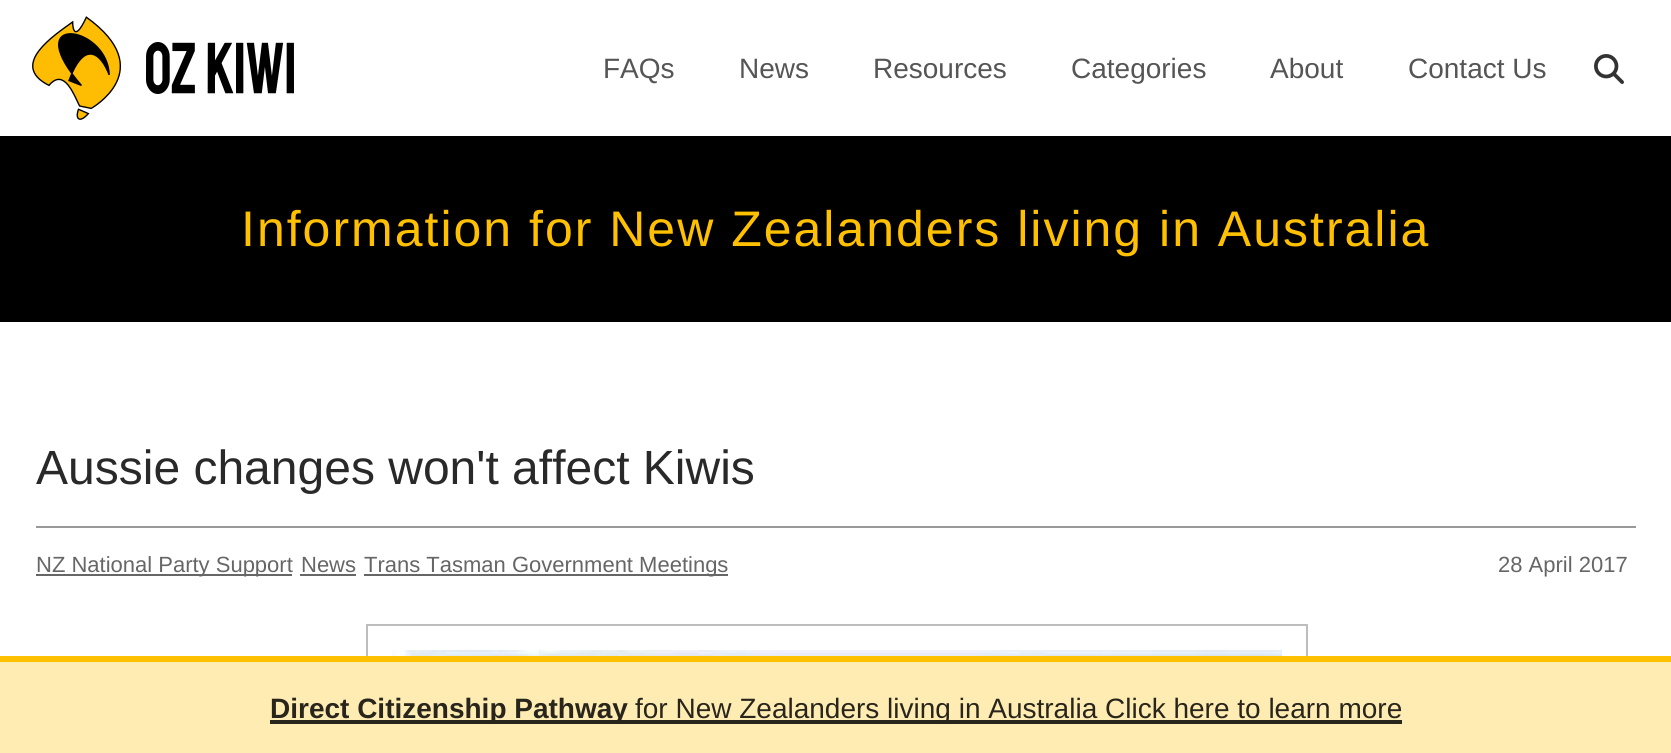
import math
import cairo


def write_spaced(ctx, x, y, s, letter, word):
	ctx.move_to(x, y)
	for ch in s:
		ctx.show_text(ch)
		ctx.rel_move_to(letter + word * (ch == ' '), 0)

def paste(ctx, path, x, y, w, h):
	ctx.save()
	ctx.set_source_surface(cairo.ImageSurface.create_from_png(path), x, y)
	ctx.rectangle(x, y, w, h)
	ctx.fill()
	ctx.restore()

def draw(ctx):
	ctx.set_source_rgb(0, 0, 0)
	ctx.paint()
	ctx.set_source_rgb(1, 1, 1)
	ctx.rectangle(0, 0, 1671, 136)
	ctx.fill()
	paste(ctx, 'media/1.png', 32, 16, 89, 104)
	paste(ctx, 'media/2.png', 146, 42, 148, 52)
	ctx.select_font_face('Liberation Sans')
	ctx.set_font_size(28)
	ctx.set_source_rgb(0.333, 0.333, 0.333)
	for x, y, s in [
		(603, 78, 'FAQs'),
		(739, 78, 'News'),
		(873, 78, 'Resources'),
		(1071, 78, 'Categories'),
		(1270, 78, 'About'),
		(1408, 78, 'Contact Us'),
	]:
		ctx.move_to(x, y)
		ctx.show_text(s)
	paste(ctx, 'media/3.png', 1594, 54, 30, 30)
	ctx.set_font_size(50)
	ctx.set_source_rgb(1, 0.753, 0)
	write_spaced(ctx, 241, 246, 'Information for New Zealanders living in Australia', 2, 0)
	ctx.set_source_rgb(1, 1, 1)
	ctx.rectangle(0, 322, 1671, 334)
	ctx.fill()
	ctx.set_font_size(48)
	ctx.set_source_rgb(0.161, 0.161, 0.161)
	ctx.move_to(36, 484)
	ctx.show_text('Aussie changes won\'t affect Kiwis')
	ctx.set_source_rgb(0.6, 0.6, 0.6)
	ctx.rectangle(36, 526, 1600, 2)
	ctx.fill()
	ctx.set_source_rgb(0.4, 0.4, 0.4)
	ctx.rectangle(36, 574, 256, 2)
	ctx.fill()
	ctx.set_font_size(22)
	ctx.move_to(36, 572)
	ctx.show_text('NZ National Party Support')
	ctx.move_to(301, 572)
	ctx.show_text('News')
	ctx.rectangle(300, 574, 56, 2)
	ctx.fill()
	ctx.rectangle(364, 574, 364, 2)
	ctx.fill()
	ctx.move_to(364, 572)
	ctx.show_text('Trans Tasman Government Meetings')
	ctx.move_to(1498, 572)
	ctx.show_text('28 April 2017')
	ctx.rectangle(367, 625, 940, 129)
	ctx.set_source_rgb(0.741, 0.741, 0.741)
	ctx.stroke()
	paste(ctx, 'media/4.png', 392, 650, 890, 6)
	ctx.set_source_rgb(1, 0.925, 0.698)
	ctx.rectangle(0, 662, 1671, 91)
	ctx.fill()
	ctx.set_source_rgb(1, 0.753, 0)
	ctx.rectangle(0, 656, 1671, 6)
	ctx.fill()
	ctx.set_source_rgb(0.161, 0.149, 0.11)
	ctx.rectangle(270, 720, 1132, 4)
	ctx.fill()
	ctx.select_font_face('Liberation Sans', cairo.FONT_SLANT_NORMAL, cairo.FONT_WEIGHT_BOLD)
	ctx.set_font_size(28)
	ctx.set_source_rgb(0.157, 0.145, 0.11)
	ctx.move_to(270, 718)
	ctx.show_text('Direct Citizenship Pathway')
	ctx.select_font_face('Liberation Sans')
	ctx.move_to(635, 718)
	ctx.show_text('for New Zealanders living in Australia')
	ctx.move_to(1105, 718)
	ctx.show_text('Click here to learn more')


surface = cairo.ImageSurface(cairo.FORMAT_RGB24, 1671, 753)
ctx = cairo.Context(surface)
options = cairo.FontOptions()
options.set_hint_metrics(cairo.HINT_METRICS_OFF)
options.set_hint_style(cairo.HINT_STYLE_NONE)
ctx.set_font_options(options)
ctx.set_miter_limit(4)
draw(ctx)
surface.write_to_png('image.png')
